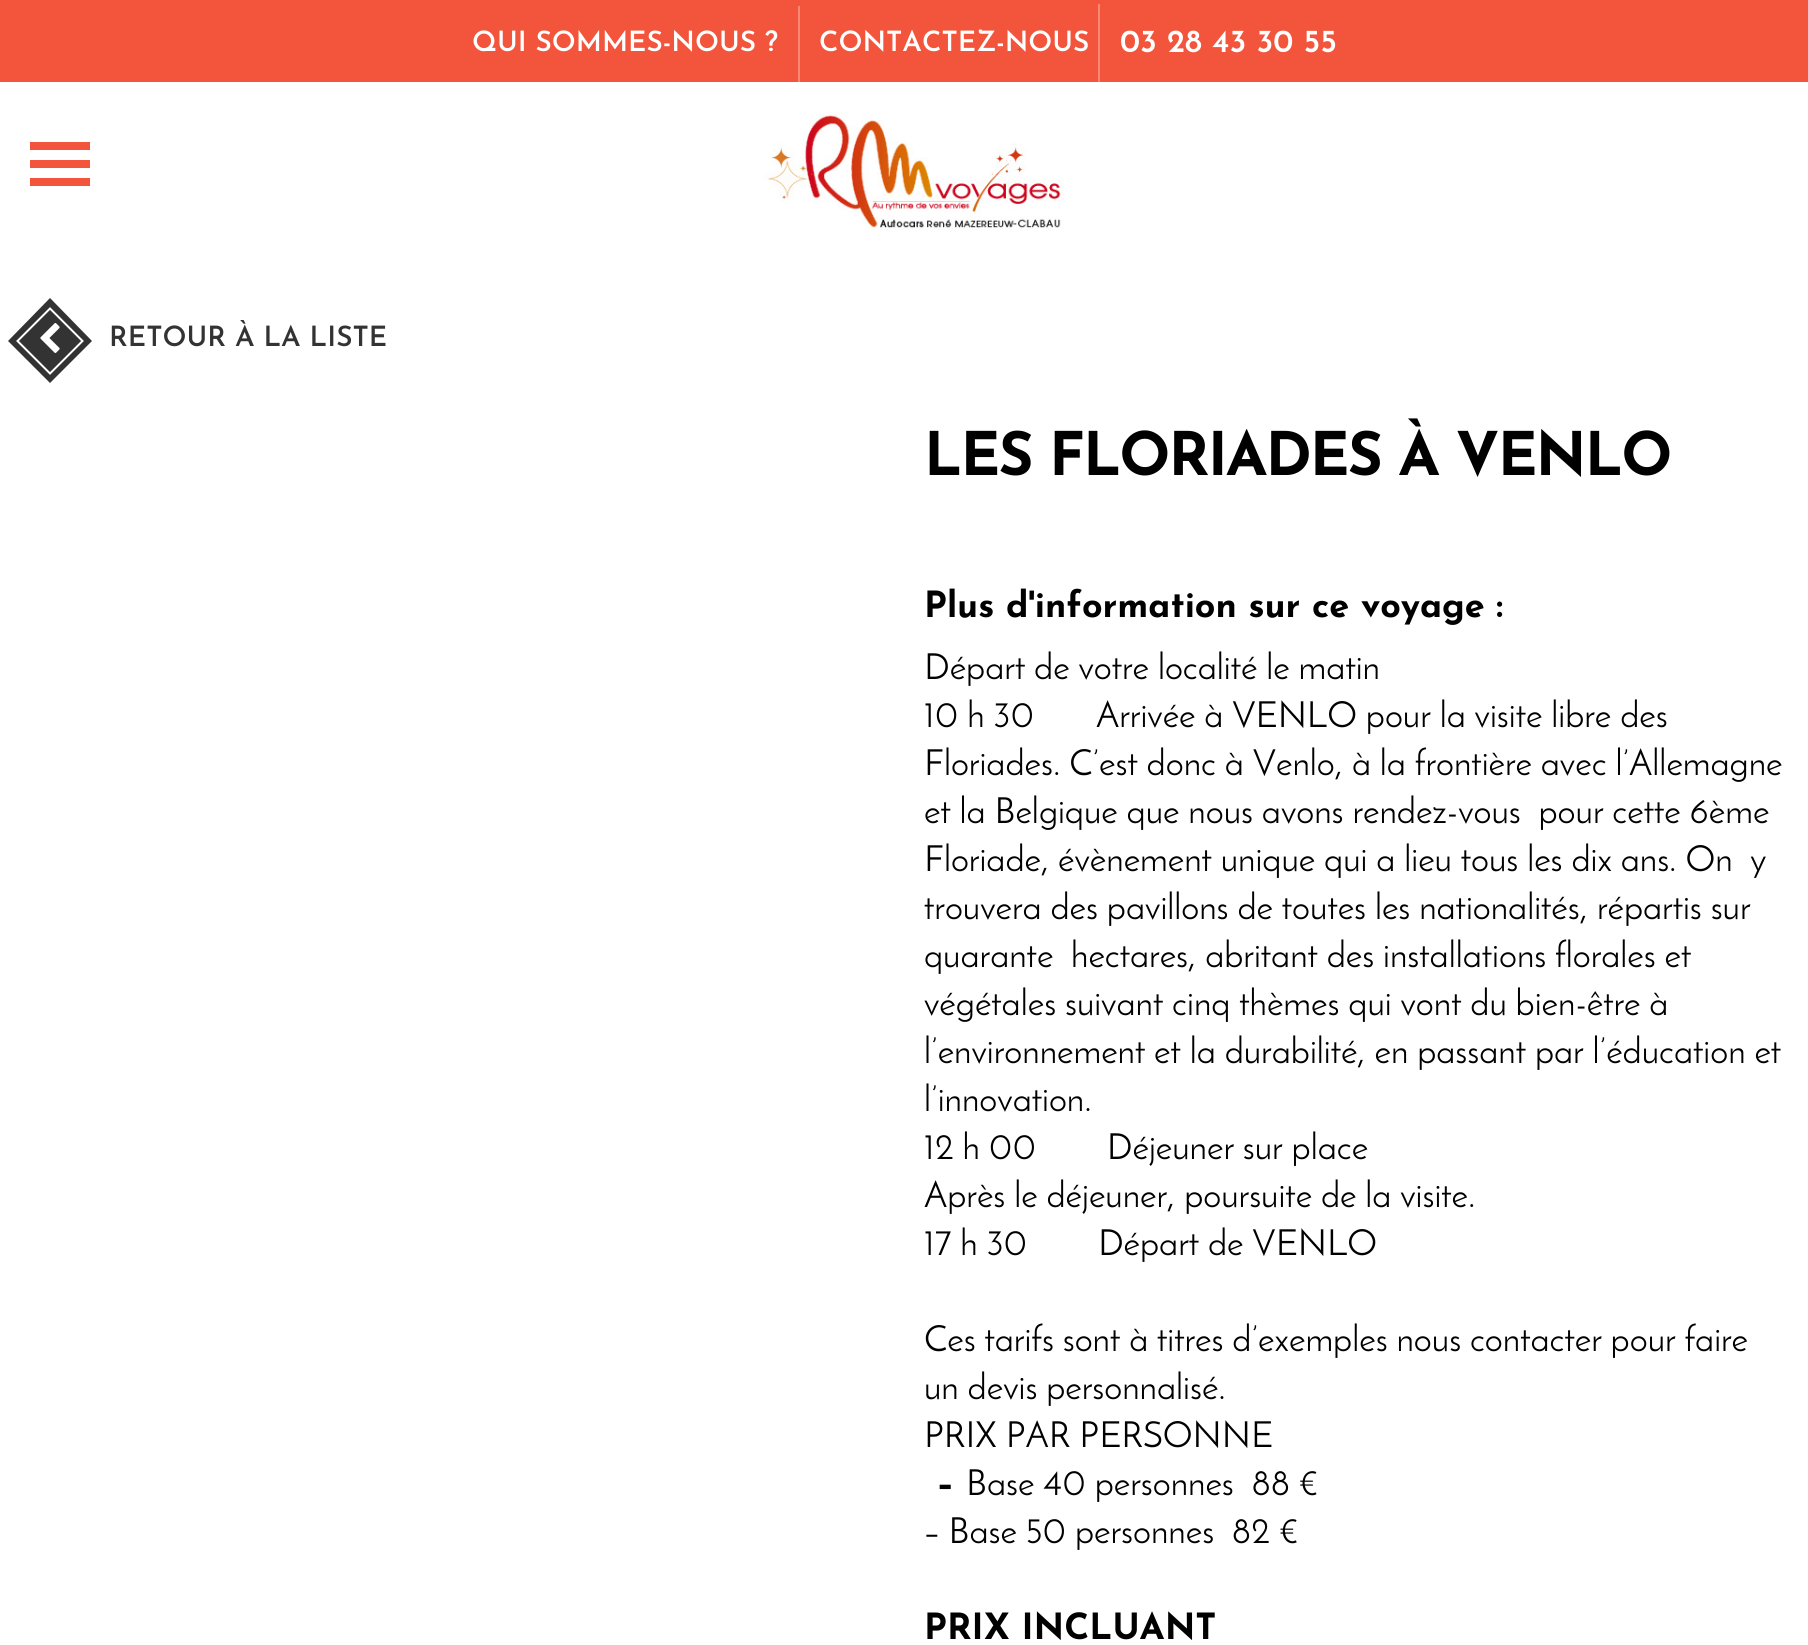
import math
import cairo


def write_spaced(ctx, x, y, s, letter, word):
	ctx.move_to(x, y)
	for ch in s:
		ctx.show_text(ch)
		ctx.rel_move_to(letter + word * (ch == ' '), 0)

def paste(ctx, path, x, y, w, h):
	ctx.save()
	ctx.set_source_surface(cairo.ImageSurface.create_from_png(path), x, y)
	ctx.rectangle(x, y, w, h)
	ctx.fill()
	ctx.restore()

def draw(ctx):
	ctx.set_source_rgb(1, 1, 1)
	ctx.paint()
	ctx.set_source_rgb(0.949, 0.333, 0.231)
	ctx.rectangle(0, 0, 1808, 82)
	ctx.fill()
	ctx.select_font_face('Josefin Sans SemiBold')
	ctx.set_font_size(28)
	ctx.set_source_rgb(1, 1, 1)
	ctx.move_to(472, 51)
	ctx.show_text('QUI SOMMES-NOUS ?')
	ctx.set_source_rgb(0.965, 0.533, 0.463)
	ctx.rectangle(798, 6, 2, 76)
	ctx.fill()
	ctx.set_source_rgb(1, 1, 1)
	ctx.move_to(819, 51)
	ctx.show_text('CONTACTEZ-NOUS')
	ctx.set_source_rgb(0.965, 0.533, 0.463)
	ctx.rectangle(1098, 4, 2, 78)
	ctx.fill()
	ctx.set_font_size(32)
	ctx.set_source_rgb(1, 1, 1)
	ctx.move_to(1120, 52)
	ctx.show_text('03 28 43 30 55')
	ctx.set_source_rgb(0.949, 0.333, 0.231)
	ctx.rectangle(30, 160, 60, 8)
	ctx.rectangle(30, 142, 60, 8)
	ctx.rectangle(30, 178, 60, 8)
	ctx.fill()
	paste(ctx, 'media/1.png', 764, 112, 300, 118)
	ctx.set_source_rgb(0.2, 0.2, 0.2)
	ctx.new_path()
	ctx.move_to(50, 298)
	ctx.line_to(92, 341)
	ctx.line_to(50, 383)
	ctx.line_to(8, 341)
	ctx.close_path()
	ctx.fill()
	paste(ctx, 'media/2.png', 40, 323, 20, 30)
	ctx.new_path()
	ctx.move_to(50, 308.5)
	ctx.line_to(82.5, 341)
	ctx.line_to(50, 373.5)
	ctx.line_to(17.5, 341)
	ctx.close_path()
	ctx.set_source_rgb(1, 1, 1)
	ctx.stroke()
	ctx.set_font_size(28)
	ctx.set_source_rgb(0.2, 0.2, 0.2)
	ctx.move_to(109, 346)
	ctx.show_text('RETOUR À LA LISTE')
	ctx.select_font_face('Josefin Sans', cairo.FONT_SLANT_NORMAL, cairo.FONT_WEIGHT_BOLD)
	ctx.set_font_size(60)
	ctx.set_source_rgb(0, 0, 0)
	write_spaced(ctx, 924, 475, 'LES FLORIADES À VENLO', -2, 0)
	ctx.set_font_size(36)
	ctx.move_to(924, 617)
	ctx.show_text('Plus d\'information sur ce voyage :')
	ctx.select_font_face('Josefin Sans')
	for x, y, s in [
		(924, 679, 'Départ de votre localité le matin'),
		(924, 727, '10 h 30       Arrivée à VENLO pour la visite libre des'),
		(924, 775, 'Floriades. C’est donc à Venlo, à la frontière avec l’Allemagne'),
		(924, 823, 'et la Belgique que nous avons rendez-vous  pour cette 6ème'),
		(924, 871, 'Floriade, évènement unique qui a lieu tous les dix ans. On  y'),
		(924, 919, 'trouvera des pavillons de toutes les nationalités, répartis sur'),
		(924, 967, 'quarante  hectares, abritant des installations florales et'),
		(924, 1015, 'végétales suivant cinq thèmes qui vont du bien-être à'),
		(924, 1063, 'l’environnement et la durabilité, en passant par l’éducation et'),
		(924, 1111, 'l’innovation.'),
		(924, 1159, '12 h 00        Déjeuner sur place'),
		(924, 1207, 'Après le déjeuner, poursuite de la visite.'),
		(924, 1255, '17 h 30        Départ de VENLO'),
		(924, 1351, 'Ces tarifs sont à titres d’exemples nous contacter pour faire'),
		(924, 1399, 'un devis personnalisé.'),
		(924, 1447, 'PRIX PAR PERSONNE'),
	]:
		ctx.move_to(x, y)
		ctx.show_text(s)
	ctx.select_font_face('Josefin Sans', cairo.FONT_SLANT_NORMAL, cairo.FONT_WEIGHT_BOLD)
	ctx.move_to(936, 1495)
	ctx.show_text('–')
	ctx.select_font_face('Josefin Sans')
	ctx.move_to(966, 1495)
	ctx.show_text('Base 40 personnes  88 €')
	ctx.move_to(924, 1543)
	ctx.show_text('– Base 50 personnes  82 €')
	ctx.select_font_face('Josefin Sans', cairo.FONT_SLANT_NORMAL, cairo.FONT_WEIGHT_BOLD)
	ctx.move_to(924, 1639)
	ctx.show_text('PRIX INCLUANT')


surface = cairo.ImageSurface(cairo.FORMAT_RGB24, 1808, 1645)
ctx = cairo.Context(surface)
options = cairo.FontOptions()
options.set_hint_metrics(cairo.HINT_METRICS_OFF)
options.set_hint_style(cairo.HINT_STYLE_NONE)
ctx.set_font_options(options)
ctx.set_miter_limit(4)
draw(ctx)
surface.write_to_png('image.png')
